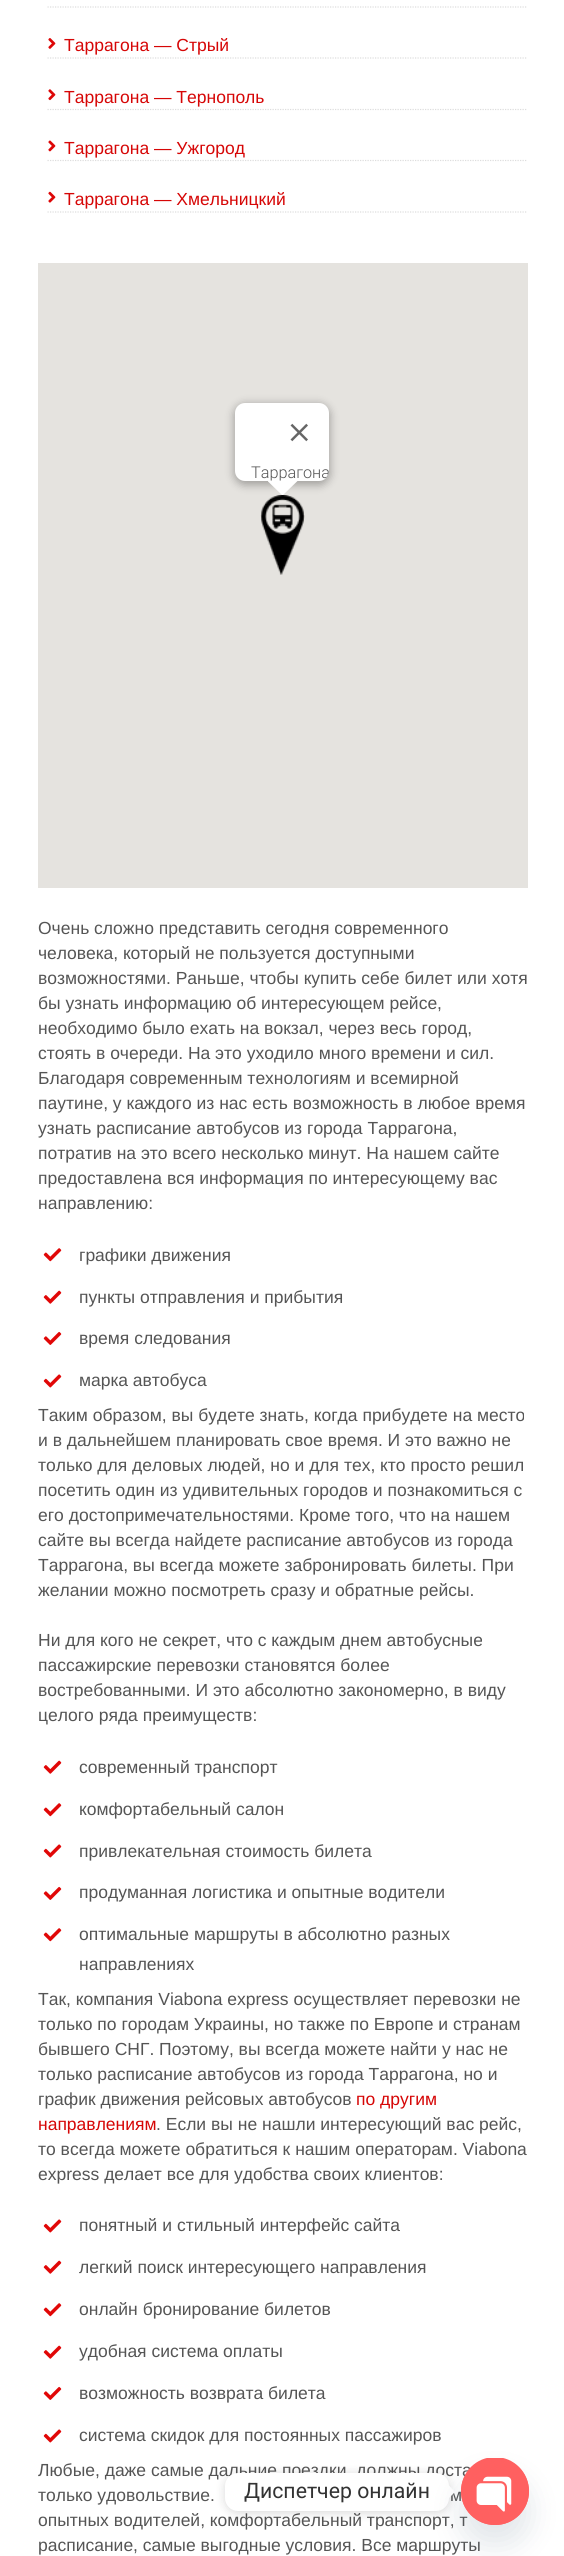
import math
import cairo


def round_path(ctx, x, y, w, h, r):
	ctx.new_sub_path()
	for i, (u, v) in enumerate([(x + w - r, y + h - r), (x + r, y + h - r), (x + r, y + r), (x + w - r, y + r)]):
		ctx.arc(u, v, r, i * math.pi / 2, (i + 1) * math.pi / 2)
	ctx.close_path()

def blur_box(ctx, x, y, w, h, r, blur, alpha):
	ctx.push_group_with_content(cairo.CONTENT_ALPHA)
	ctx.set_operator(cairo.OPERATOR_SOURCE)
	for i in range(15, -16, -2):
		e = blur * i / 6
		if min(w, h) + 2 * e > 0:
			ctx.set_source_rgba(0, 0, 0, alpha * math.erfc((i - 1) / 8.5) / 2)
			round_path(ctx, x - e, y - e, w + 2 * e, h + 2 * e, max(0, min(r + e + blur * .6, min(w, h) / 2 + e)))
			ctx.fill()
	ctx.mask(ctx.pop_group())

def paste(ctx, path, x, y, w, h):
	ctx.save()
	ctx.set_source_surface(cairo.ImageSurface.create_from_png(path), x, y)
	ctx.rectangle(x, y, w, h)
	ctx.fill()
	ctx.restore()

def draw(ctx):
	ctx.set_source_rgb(1, 1, 1)
	ctx.paint()
	ctx.new_path()
	ctx.move_to(47.5, 7)
	ctx.line_to(527.5, 7)
	ctx.set_source_rgb(0.867, 0.867, 0.867)
	ctx.set_line_width(1.2)
	ctx.set_dash([1.25, 1.25])
	ctx.stroke()
	ctx.new_path()
	ctx.move_to(47.5, 58)
	ctx.line_to(527.5, 58)
	ctx.stroke()
	paste(ctx, 'media/1.png', 48, 38, 8, 11)
	ctx.select_font_face('Liberation Sans')
	ctx.set_font_size(17.5)
	ctx.set_source_rgb(0.839, 0.027, 0.027)
	ctx.move_to(64, 51)
	ctx.show_text('Таррагона — Стрый')
	ctx.new_path()
	ctx.move_to(47.5, 109.5)
	ctx.line_to(527.5, 109.5)
	ctx.set_source_rgb(0.867, 0.867, 0.867)
	ctx.stroke()
	paste(ctx, 'media/2.png', 48, 89, 8, 12)
	ctx.set_source_rgb(0.839, 0.027, 0.027)
	ctx.move_to(64, 103)
	ctx.show_text('Таррагона — Тернополь')
	ctx.new_path()
	ctx.move_to(47.5, 160.5)
	ctx.line_to(527.5, 160.5)
	ctx.set_source_rgb(0.867, 0.867, 0.867)
	ctx.stroke()
	paste(ctx, 'media/3.png', 48, 140, 8, 12)
	ctx.set_source_rgb(0.839, 0.027, 0.027)
	ctx.move_to(64, 154)
	ctx.show_text('Таррагона — Ужгород')
	ctx.new_path()
	ctx.move_to(47.5, 212)
	ctx.line_to(527.5, 212)
	ctx.set_source_rgb(0.867, 0.867, 0.867)
	ctx.stroke()
	paste(ctx, 'media/4.png', 48, 191, 8, 12)
	ctx.set_source_rgb(0.839, 0.027, 0.027)
	ctx.move_to(64, 205)
	ctx.show_text('Таррагона — Хмельницкий')
	ctx.set_source_rgb(0.898, 0.89, 0.875)
	ctx.rectangle(38, 263, 490, 625)
	ctx.fill()
	paste(ctx, 'media/6.png', 260, 495, 45, 80)
	ctx.set_source_rgb(0, 0, 0)
	blur_box(ctx, 234, 404, 96, 81, 11, 4.5, 0.3)
	ctx.set_source_rgb(1, 1, 1)
	round_path(ctx, 235, 403, 94, 78, 10)
	ctx.fill()
	paste(ctx, 'media/5.png', 290, 423, 18, 19)
	ctx.save()
	round_path(ctx, 235, 403, 94, 78, 10)
	ctx.clip()
	ctx.select_font_face('Roboto Light')
	ctx.set_font_size(16.25)
	ctx.set_source_rgb(0.333, 0.333, 0.333)
	ctx.move_to(251, 478)
	ctx.show_text('Таррагона')
	ctx.restore()
	ctx.new_path()
	ctx.move_to(268, 481.5)
	ctx.line_to(268, 480.5)
	ctx.line_to(298, 480.5)
	ctx.line_to(283, 495)
	ctx.line_to(282, 495)
	ctx.close_path()
	ctx.fill()
	ctx.set_source_rgb(0.333, 0.333, 0.333)
	for x, y, s in [
		(38, 934, 'Очень сложно представить сегодня современного'),
		(38, 959, 'человека, который не пользуется доступными'),
		(38, 984, 'возможностями. Раньше, чтобы купить себе билет или хотя'),
		(38, 1009, 'бы узнать информацию об интересующем рейсе,'),
		(38, 1034, 'необходимо было ехать на вокзал, через весь город,'),
		(38, 1059, 'стоять в очереди. На это уходило много времени и сил.'),
		(38, 1084, 'Благодаря современным технологиям и всемирной'),
		(38, 1109, 'паутине, у каждого из нас есть возможность в любое время'),
		(38, 1134, 'узнать расписание автобусов из города Таррагона,'),
		(38, 1159, 'потратив на это всего несколько минут. На нашем сайте'),
		(38, 1184, 'предоставлена вся информация по интересующему вас'),
		(38, 1209, 'направлению:'),
	]:
		ctx.move_to(x, y)
		ctx.show_text(s)
	paste(ctx, 'media/7.png', 43, 1248, 19, 14)
	ctx.move_to(79, 1261)
	ctx.show_text('графики движения')
	paste(ctx, 'media/8.png', 43, 1290, 19, 14)
	ctx.move_to(79, 1303)
	ctx.show_text('пункты отправления и прибытия')
	paste(ctx, 'media/9.png', 43, 1331, 19, 14)
	ctx.move_to(79, 1344)
	ctx.show_text('время следования')
	paste(ctx, 'media/10.png', 43, 1374, 19, 14)
	for x, y, s in [
		(79, 1386, 'марка автобуса'),
		(38, 1421, 'Таким образом, вы будете знать, когда прибудете на место'),
		(38, 1446, 'и в дальнейшем планировать свое время. И это важно не'),
		(38, 1471, 'только для деловых людей, но и для тех, кто просто решил'),
		(38, 1496, 'посетить один из удивительных городов и познакомиться с'),
		(38, 1521, 'его достопримечательностями. Кроме того, что на нашем'),
		(38, 1546, 'сайте вы всегда найдете расписание автобусов из города'),
		(38, 1571, 'Таррагона, вы всегда можете забронировать билеты. При'),
		(38, 1596, 'желании можно посмотреть сразу и обратные рейсы.'),
		(38, 1646, 'Ни для кого не секрет, что с каждым днем автобусные'),
		(38, 1671, 'пассажирские перевозки становятся более'),
		(38, 1696, 'востребованными. И это абсолютно закономерно, в виду'),
		(38, 1721, 'целого ряда преимуществ:'),
	]:
		ctx.move_to(x, y)
		ctx.show_text(s)
	paste(ctx, 'media/8.png', 43, 1760, 19, 14)
	ctx.move_to(79, 1773)
	ctx.show_text('современный транспорт')
	paste(ctx, 'media/7.png', 43, 1803, 19, 14)
	ctx.move_to(79, 1815)
	ctx.show_text('комфортабельный салон')
	paste(ctx, 'media/10.png', 43, 1844, 19, 14)
	ctx.move_to(79, 1857)
	ctx.show_text('привлекательная стоимость билета')
	paste(ctx, 'media/9.png', 43, 1886, 19, 14)
	ctx.move_to(79, 1898)
	ctx.show_text('продуманная логистика и опытные водители')
	paste(ctx, 'media/7.png', 43, 1928, 19, 14)
	for x, y, s in [
		(79, 1940, 'оптимальные маршруты в абсолютно разных'),
		(79, 1970, 'направлениях'),
		(38, 2005, 'Так, компания Viabona express осуществляет перевозки не'),
		(38, 2030, 'только по городам Украины, но также по Европе и странам'),
		(38, 2055, 'бывшего СНГ. Поэтому, вы всегда можете найти у нас не'),
		(38, 2080, 'только расписание автобусов из города Таррагона, но и'),
		(38, 2105, 'график движения рейсовых автобусов'),
	]:
		ctx.move_to(x, y)
		ctx.show_text(s)
	ctx.set_source_rgb(0.839, 0.027, 0.027)
	ctx.move_to(356, 2105)
	ctx.show_text('по другим')
	ctx.move_to(38, 2130)
	ctx.show_text('направлениям')
	ctx.set_source_rgb(0.333, 0.333, 0.333)
	for x, y, s in [
		(156, 2130, '. Если вы не нашли интересующий вас рейс,'),
		(38, 2155, 'то всегда можете обратиться к нашим операторам. Viabona'),
		(38, 2180, 'express делает все для удобства своих клиентов:'),
	]:
		ctx.move_to(x, y)
		ctx.show_text(s)
	paste(ctx, 'media/10.png', 43, 2219, 19, 14)
	ctx.move_to(79, 2231)
	ctx.show_text('понятный и стильный интерфейс сайта')
	paste(ctx, 'media/8.png', 43, 2260, 19, 14)
	ctx.move_to(79, 2273)
	ctx.show_text('легкий поиск интересующего направления')
	paste(ctx, 'media/7.png', 43, 2303, 19, 14)
	ctx.move_to(79, 2315)
	ctx.show_text('онлайн бронирование билетов')
	paste(ctx, 'media/8.png', 43, 2345, 19, 14)
	ctx.move_to(79, 2357)
	ctx.show_text('удобная система оплаты')
	paste(ctx, 'media/9.png', 43, 2386, 19, 14)
	ctx.move_to(79, 2399)
	ctx.show_text('возможность возврата билета')
	paste(ctx, 'media/10.png', 43, 2429, 19, 14)
	for x, y, s in [
		(79, 2441, 'система скидок для постоянных пассажиров'),
		(38, 2476, 'Любые, даже самые дальние поездки, должны доста'),
		(38, 2501, 'только удовольствие.'),
		(450, 2501, 'м'),
		(38, 2526, 'опытных водителей, комфортабельный транспорт, т'),
		(38, 2551, 'расписание, самые выгодные условия. Все маршруты'),
	]:
		ctx.move_to(x, y)
		ctx.show_text(s)
	ctx.set_source_rgb(0, 0, 0)
	blur_box(ctx, 225, 2474, 224, 39, 13, 5, 0.15)
	ctx.set_source_rgb(1, 1, 1)
	round_path(ctx, 225, 2473, 224, 38, 13)
	ctx.fill()
	ctx.select_font_face('Roboto')
	ctx.set_font_size(21.25)
	ctx.set_source_rgb(0.2, 0.2, 0.2)
	ctx.move_to(244, 2498)
	ctx.show_text('Диспетчер онлайн')
	ctx.set_source_rgb(1, 1, 1)
	ctx.new_path()
	ctx.move_to(449, 2498)
	ctx.line_to(449, 2485.5)
	ctx.line_to(455, 2492)
	ctx.close_path()
	ctx.fill()
	ctx.set_source_rgb(0.286, 0.408, 0.494)
	blur_box(ctx, 461, 2478, 68, 67, 33.5, 15, 0.16)
	ctx.set_source_rgb(1, 0.376, 0.376)
	round_path(ctx, 461, 2458, 68, 67, 33.5)
	ctx.fill()
	paste(ctx, 'media/11.png', 461, 2458, 68, 67)


surface = cairo.ImageSurface(cairo.FORMAT_RGB24, 564, 2556)
ctx = cairo.Context(surface)
options = cairo.FontOptions()
options.set_hint_metrics(cairo.HINT_METRICS_OFF)
options.set_hint_style(cairo.HINT_STYLE_NONE)
ctx.set_font_options(options)
ctx.set_miter_limit(4)
draw(ctx)
surface.write_to_png('image.png')
